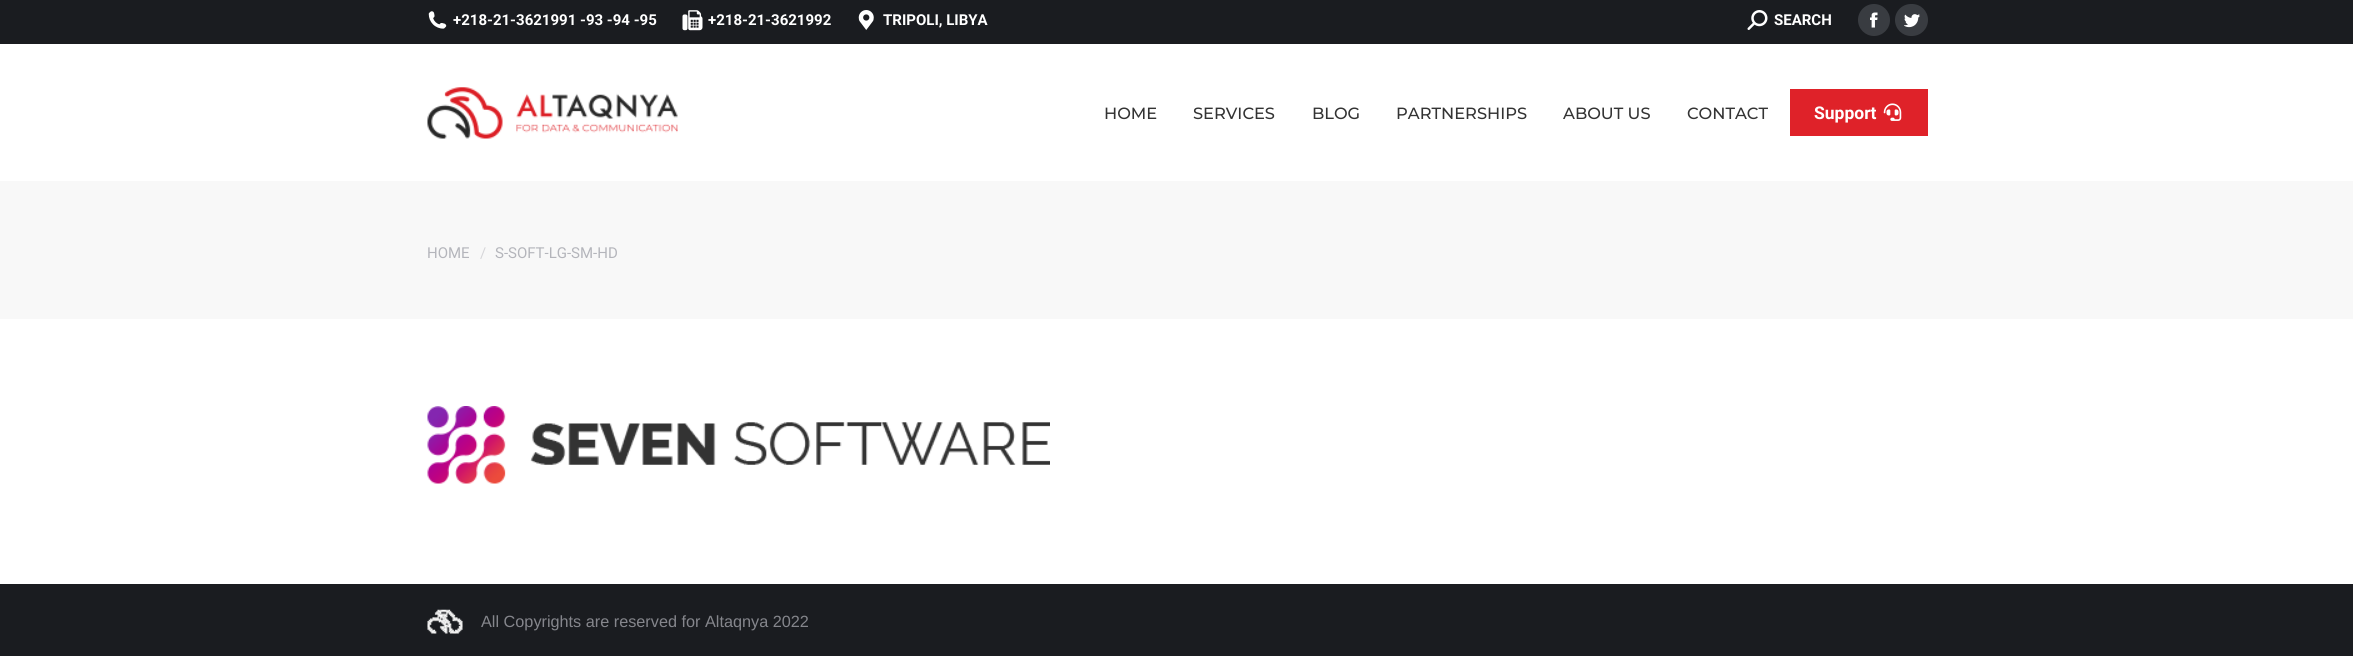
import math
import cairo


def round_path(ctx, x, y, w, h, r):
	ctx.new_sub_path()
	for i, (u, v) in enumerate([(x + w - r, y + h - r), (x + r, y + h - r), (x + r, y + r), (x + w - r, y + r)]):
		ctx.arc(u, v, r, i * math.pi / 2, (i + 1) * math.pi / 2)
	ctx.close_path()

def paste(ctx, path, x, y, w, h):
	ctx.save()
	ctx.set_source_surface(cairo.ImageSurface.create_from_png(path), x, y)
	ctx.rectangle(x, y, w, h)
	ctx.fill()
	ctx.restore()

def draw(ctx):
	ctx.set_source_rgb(1, 1, 1)
	ctx.paint()
	ctx.set_source_rgb(0.102, 0.11, 0.125)
	ctx.rectangle(0, 0, 2353, 44)
	ctx.fill()
	paste(ctx, 'media/1.png', 428, 11, 19, 18)
	ctx.select_font_face('Roboto', cairo.FONT_SLANT_NORMAL, cairo.FONT_WEIGHT_BOLD)
	ctx.set_font_size(15)
	ctx.set_source_rgb(1, 1, 1)
	ctx.move_to(453, 25)
	ctx.show_text('+218-21-3621991 -93 -94 -95')
	paste(ctx, 'media/2.png', 682, 10, 21, 21)
	ctx.move_to(708, 25)
	ctx.show_text('+218-21-3621992')
	paste(ctx, 'media/3.png', 858, 10, 16, 20)
	ctx.move_to(883, 25)
	ctx.show_text('TRIPOLI, LIBYA')
	paste(ctx, 'media/4.png', 1747, 10, 21, 20)
	ctx.move_to(1774, 25)
	ctx.show_text('SEARCH')
	ctx.set_source_rgb(0.224, 0.235, 0.255)
	ctx.new_path()
	ctx.arc(1874, 20, 16, 0, 2 * math.pi)
	ctx.fill()
	paste(ctx, 'media/5.png', 1870, 12, 8, 16)
	round_path(ctx, 1895, 4, 33, 32, 16)
	ctx.fill()
	paste(ctx, 'media/6.png', 1904, 14, 16, 14)
	paste(ctx, 'media/7.png', 427, 87, 251, 52)
	ctx.select_font_face('Montserrat Medium')
	ctx.set_font_size(16.25)
	ctx.set_source_rgb(0.2, 0.2, 0.2)
	for x, y, s in [
		(1104, 119, 'HOME'),
		(1193, 119, 'SERVICES'),
		(1312, 119, 'BLOG'),
		(1396, 119, 'PARTNERSHIPS'),
		(1563, 119, 'ABOUT US'),
		(1687, 119, 'CONTACT'),
	]:
		ctx.move_to(x, y)
		ctx.show_text(s)
	ctx.set_source_rgb(0.875, 0.133, 0.161)
	ctx.rectangle(1790, 89, 138, 47)
	ctx.fill()
	ctx.select_font_face('Roboto', cairo.FONT_SLANT_NORMAL, cairo.FONT_WEIGHT_BOLD)
	ctx.set_font_size(17.5)
	ctx.set_source_rgb(1, 1, 1)
	ctx.move_to(1814, 119)
	ctx.show_text('Support')
	paste(ctx, 'media/8.png', 1883, 103, 19, 18)
	ctx.set_source_rgb(0.969, 0.969, 0.969)
	ctx.rectangle(0, 181, 2353, 138)
	ctx.fill()
	ctx.select_font_face('Roboto')
	ctx.set_font_size(15)
	ctx.set_source_rgb(0.706, 0.71, 0.733)
	ctx.move_to(427, 258)
	ctx.show_text('HOME')
	ctx.set_source_rgb(0.839, 0.839, 0.851)
	ctx.move_to(480, 258)
	ctx.show_text('/')
	ctx.set_source_rgb(0.706, 0.71, 0.733)
	ctx.move_to(495, 258)
	ctx.show_text('S-SOFT-LG-SM-HD')
	paste(ctx, 'media/9.png', 427, 406, 623, 78)
	ctx.set_source_rgb(0.102, 0.11, 0.125)
	ctx.rectangle(0, 584, 2353, 72)
	ctx.fill()
	paste(ctx, 'media/10.png', 427, 609, 36, 25)
	ctx.select_font_face('Liberation Sans')
	ctx.set_font_size(16.25)
	ctx.set_source_rgb(0.522, 0.525, 0.549)
	ctx.move_to(481, 627)
	ctx.show_text('All Copyrights are reserved for Altaqnya 2022')


surface = cairo.ImageSurface(cairo.FORMAT_RGB24, 2353, 656)
ctx = cairo.Context(surface)
options = cairo.FontOptions()
options.set_hint_metrics(cairo.HINT_METRICS_OFF)
options.set_hint_style(cairo.HINT_STYLE_NONE)
ctx.set_font_options(options)
ctx.set_miter_limit(4)
draw(ctx)
surface.write_to_png('image.png')
